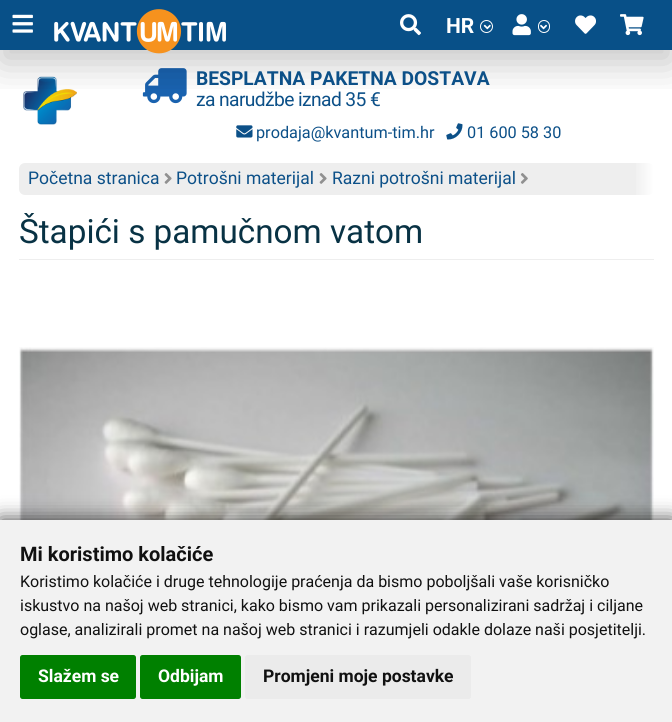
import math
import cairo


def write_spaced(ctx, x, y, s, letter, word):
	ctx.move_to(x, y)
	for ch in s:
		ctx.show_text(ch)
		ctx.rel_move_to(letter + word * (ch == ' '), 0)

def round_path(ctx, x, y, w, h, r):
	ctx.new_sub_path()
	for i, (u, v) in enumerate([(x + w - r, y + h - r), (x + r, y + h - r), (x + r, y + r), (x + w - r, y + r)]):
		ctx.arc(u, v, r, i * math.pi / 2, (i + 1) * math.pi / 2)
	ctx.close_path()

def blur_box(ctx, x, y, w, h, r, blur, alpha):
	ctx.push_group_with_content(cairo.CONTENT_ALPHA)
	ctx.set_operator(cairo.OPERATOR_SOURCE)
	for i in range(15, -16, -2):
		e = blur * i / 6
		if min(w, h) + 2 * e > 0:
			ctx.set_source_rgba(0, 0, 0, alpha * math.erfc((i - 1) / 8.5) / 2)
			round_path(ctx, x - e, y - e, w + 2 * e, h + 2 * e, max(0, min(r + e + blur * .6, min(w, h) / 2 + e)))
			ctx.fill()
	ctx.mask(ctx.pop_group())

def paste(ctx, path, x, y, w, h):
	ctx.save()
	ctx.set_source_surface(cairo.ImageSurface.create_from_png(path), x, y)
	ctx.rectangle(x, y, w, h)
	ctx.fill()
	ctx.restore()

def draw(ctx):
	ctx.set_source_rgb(0.035, 0.314, 0.533)
	ctx.paint()
	ctx.set_source_rgb(1, 1, 1)
	ctx.rectangle(0, 50, 672, 470)
	ctx.fill()
	paste(ctx, 'media/9.png', 23, 76, 54, 49)
	paste(ctx, 'media/10.png', 142, 68, 45, 36)
	ctx.save()
	ctx.rectangle(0, 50, 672, 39)
	ctx.clip()
	ctx.set_source_rgb(0, 0, 0)
	blur_box(ctx, 0, 13, 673, 50, 0, 19, 0.23)
	ctx.restore()
	paste(ctx, 'media/1.png', 12, 14, 21, 19)
	paste(ctx, 'media/2.png', 54, 9, 172, 45)
	paste(ctx, 'media/3.png', 400, 14, 21, 22)
	ctx.select_font_face('Roboto', cairo.FONT_SLANT_NORMAL, cairo.FONT_WEIGHT_BOLD)
	ctx.set_font_size(21)
	ctx.move_to(446, 33)
	ctx.show_text('HR')
	ctx.new_path()
	ctx.arc(486.5, 26.5, 6, 0, 2 * math.pi)
	ctx.set_line_width(1)
	ctx.stroke()
	paste(ctx, 'media/4.png', 483, 24, 8, 6)
	paste(ctx, 'media/5.png', 512, 14, 19, 22)
	round_path(ctx, 538.5, 20.5, 11, 12, 5.5)
	ctx.stroke()
	paste(ctx, 'media/6.png', 540, 24, 7, 6)
	paste(ctx, 'media/7.png', 575, 15, 21, 19)
	paste(ctx, 'media/8.png', 620, 14, 24, 22)
	ctx.set_font_size(19.25)
	ctx.set_source_rgb(0.047, 0.314, 0.533)
	ctx.move_to(196, 85)
	ctx.show_text('BESPLATNA PAKETNA DOSTAVA')
	ctx.select_font_face('Roboto')
	write_spaced(ctx, 196, 106, 'za narudžbe iznad 35 €', -0.6, 0)
	paste(ctx, 'media/11.png', 236, 125, 17, 13)
	ctx.set_font_size(16.25)
	ctx.move_to(256, 138)
	ctx.show_text('prodaja@kvantum-tim.hr')
	paste(ctx, 'media/12.png', 446, 123, 17, 17)
	ctx.move_to(467, 138)
	ctx.show_text('01 600 58 30')
	ctx.set_source_rgb(0.933, 0.933, 0.933)
	round_path(ctx, 19, 163, 635, 32, 6)
	ctx.fill()
	ctx.set_font_size(17.5)
	ctx.set_source_rgb(0.047, 0.314, 0.533)
	ctx.move_to(28, 184)
	ctx.show_text('Početna stranica')
	paste(ctx, 'media/13.png', 164, 173, 8, 11)
	ctx.move_to(176, 184)
	ctx.show_text('Potrošni materijal')
	paste(ctx, 'media/13.png', 319, 173, 8, 11)
	ctx.move_to(332, 184)
	ctx.show_text('Razni potrošni materijal')
	paste(ctx, 'media/14.png', 520, 173, 8, 11)
	gradient = cairo.LinearGradient(633, 179, 654, 179)
	gradient.add_color_stop_rgba(0, 1, 1, 1, 0)
	gradient.add_color_stop_rgba(1, 1, 1, 1, 1)
	ctx.set_source(gradient)
	ctx.rectangle(636, 163, 18, 32)
	ctx.fill()
	ctx.set_source_rgb(0.933, 0.933, 0.933)
	ctx.rectangle(19, 259, 635, 1)
	ctx.fill()
	ctx.set_font_size(33.25)
	ctx.set_source_rgb(0.035, 0.196, 0.267)
	ctx.move_to(19, 243)
	ctx.show_text('Štapići s pamučnom vatom')
	paste(ctx, 'media/15.png', 19, 347, 635, 173)
	ctx.set_source_rgb(0, 0, 0)
	blur_box(ctx, 0, 520, 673, 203, 0, 10, 0.75)
	ctx.set_source_rgb(0.949, 0.949, 0.949)
	ctx.rectangle(0, 520, 672, 202)
	ctx.fill()
	ctx.select_font_face('Roboto', cairo.FONT_SLANT_NORMAL, cairo.FONT_WEIGHT_BOLD)
	ctx.set_font_size(20)
	ctx.set_source_rgb(0.067, 0.067, 0.067)
	ctx.move_to(20, 561)
	ctx.show_text('Mi koristimo kolačiće')
	ctx.select_font_face('Roboto')
	ctx.set_font_size(16)
	for x, y, s in [
		(20, 587, 'Koristimo kolačiće i druge tehnologije praćenja da bismo poboljšali vaše korisničko'),
		(20, 611, 'iskustvo na našoj web stranici, kako bismo vam prikazali personalizirani sadržaj i ciljane'),
		(20, 635, 'oglase, analizirali promet na našoj web stranici i razumjeli odakle dolaze naši posjetitelji.'),
	]:
		ctx.move_to(x, y)
		ctx.show_text(s)
	ctx.set_source_rgb(0, 0.502, 0)
	round_path(ctx, 20, 655, 116, 44, 2.5)
	ctx.fill()
	ctx.select_font_face('Roboto', cairo.FONT_SLANT_NORMAL, cairo.FONT_WEIGHT_BOLD)
	ctx.set_font_size(17.5)
	ctx.set_source_rgb(1, 1, 1)
	ctx.move_to(38, 682)
	ctx.show_text('Slažem se')
	ctx.set_source_rgb(0, 0.502, 0)
	round_path(ctx, 140, 655, 101, 44, 2.5)
	ctx.fill()
	ctx.set_source_rgb(1, 1, 1)
	ctx.move_to(158, 682)
	ctx.show_text('Odbijam')
	ctx.set_source_rgb(0.918, 0.918, 0.918)
	round_path(ctx, 245, 655, 226, 44, 2.5)
	ctx.fill()
	ctx.set_source_rgb(0.067, 0.067, 0.067)
	ctx.move_to(263, 682)
	ctx.show_text('Promjeni moje postavke')


surface = cairo.ImageSurface(cairo.FORMAT_RGB24, 672, 722)
ctx = cairo.Context(surface)
options = cairo.FontOptions()
options.set_hint_metrics(cairo.HINT_METRICS_OFF)
options.set_hint_style(cairo.HINT_STYLE_NONE)
ctx.set_font_options(options)
ctx.set_miter_limit(4)
draw(ctx)
surface.write_to_png('image.png')
